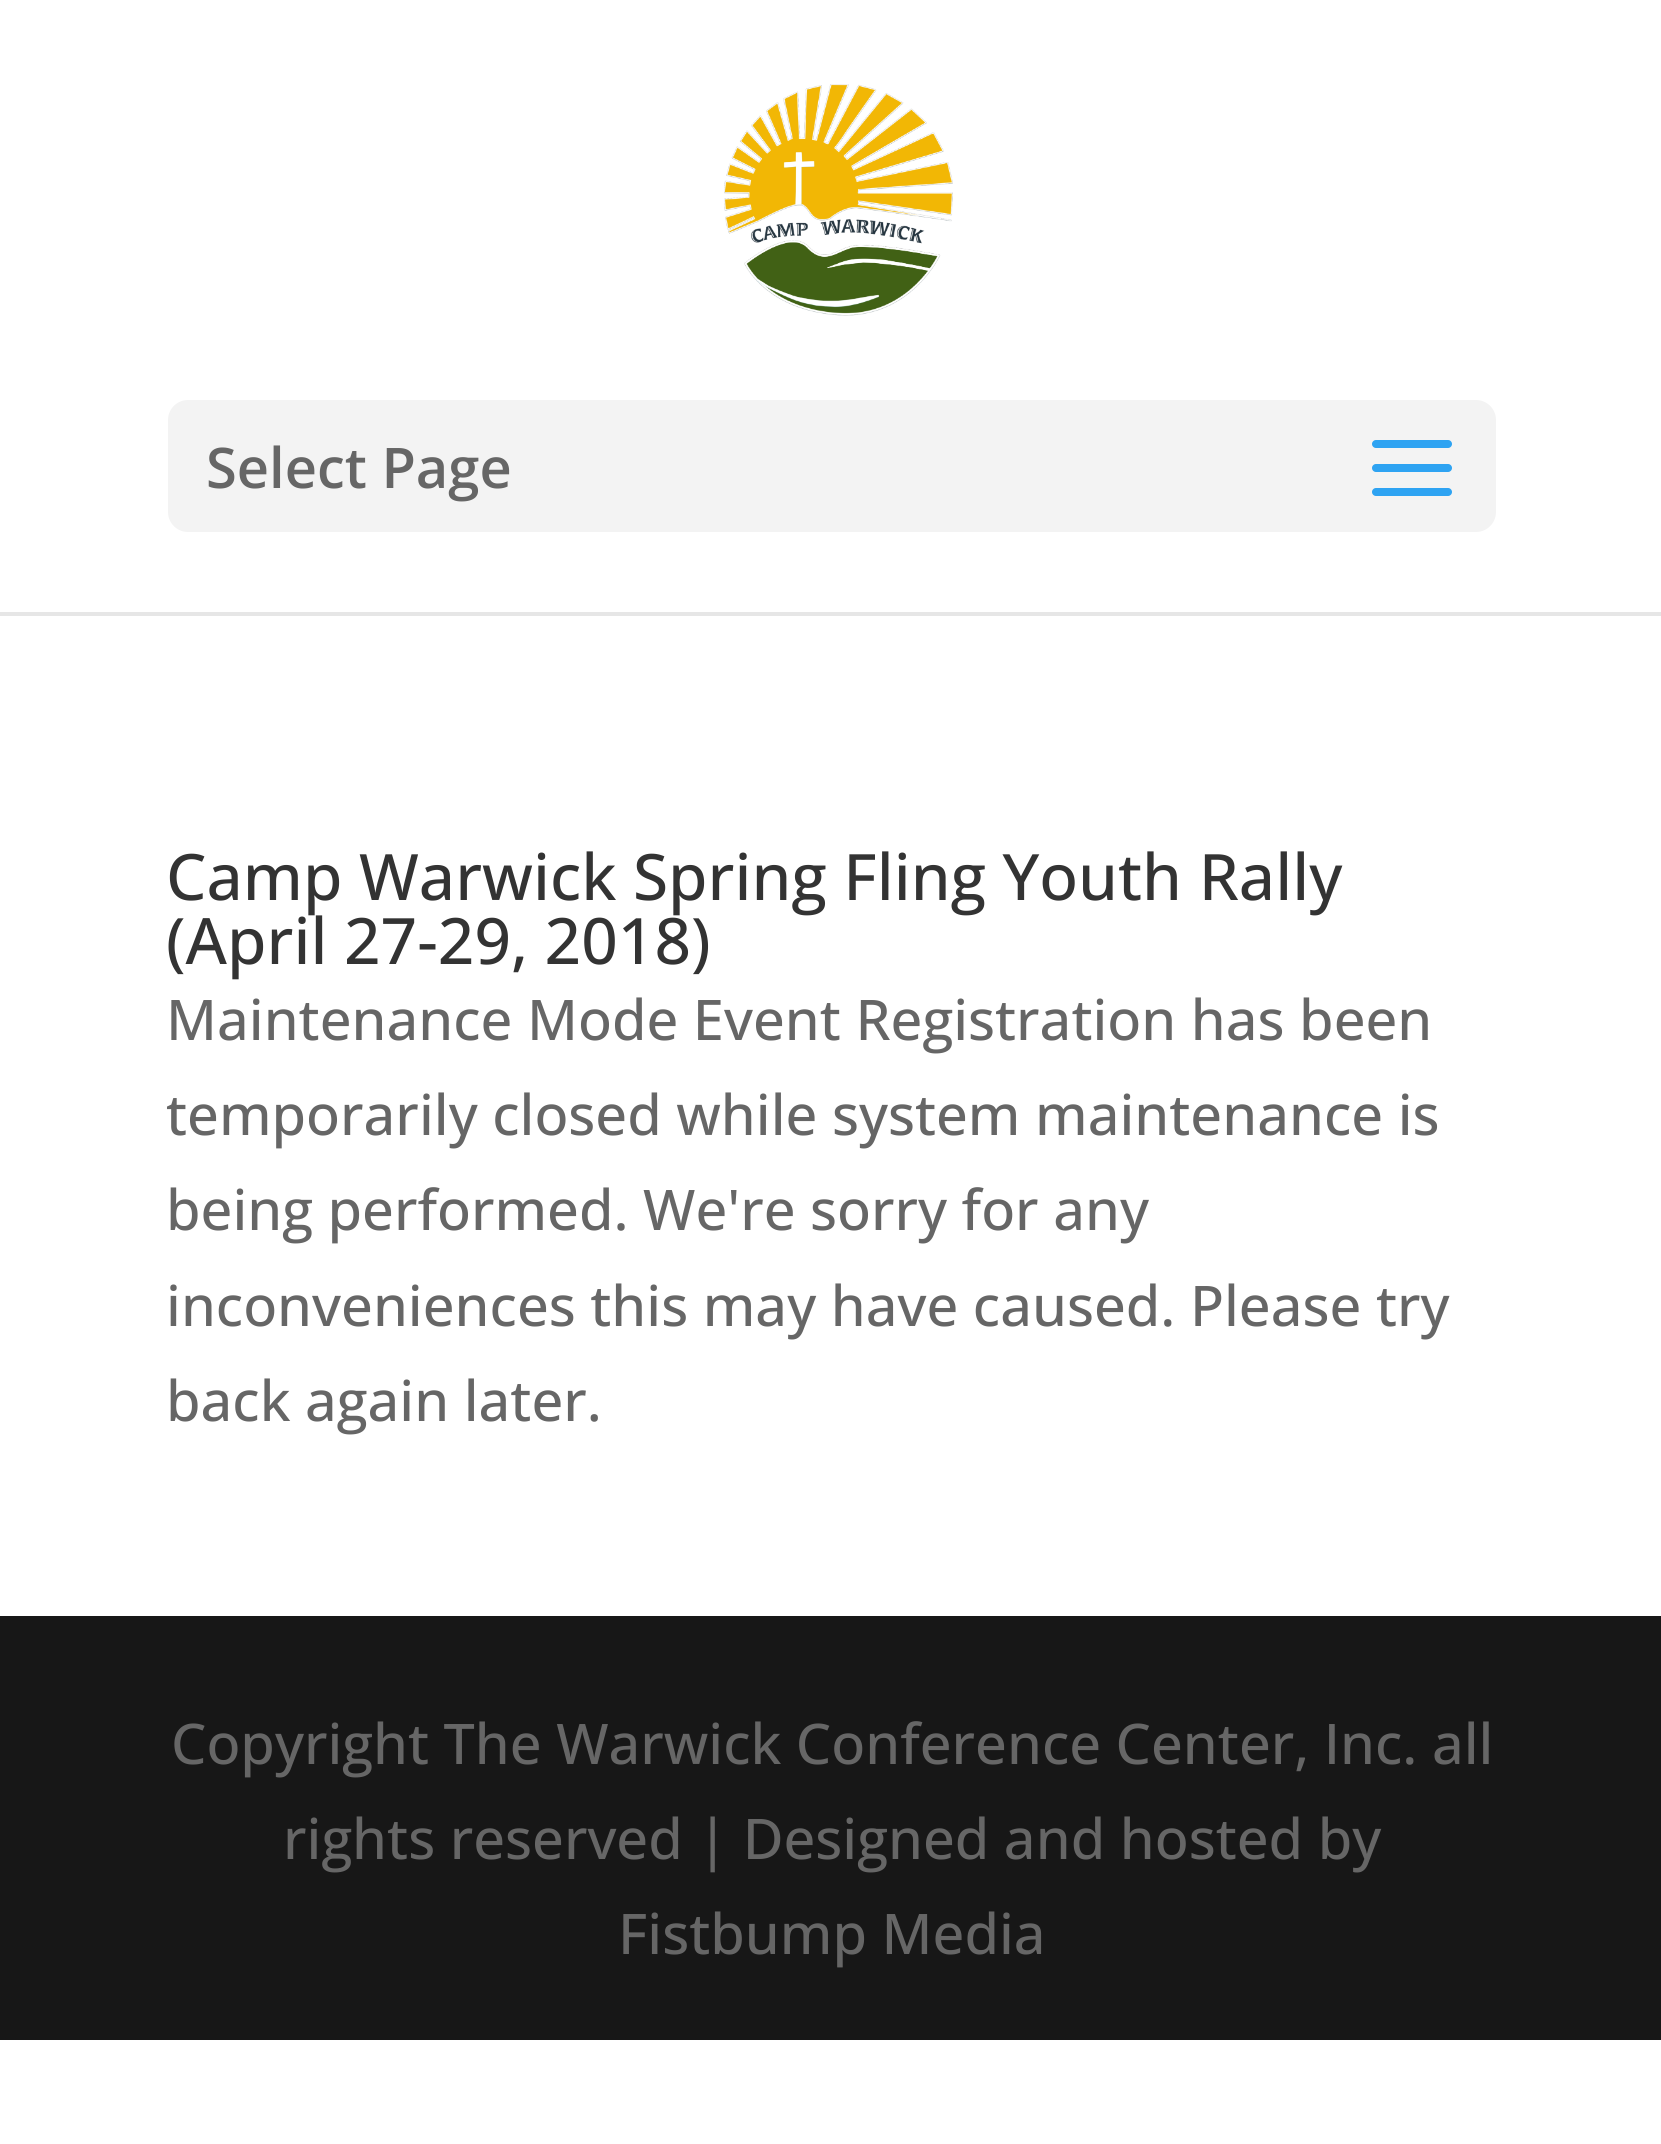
import math
import cairo


def round_path(ctx, x, y, w, h, r):
	ctx.new_sub_path()
	for i, (u, v) in enumerate([(x + w - r, y + h - r), (x + r, y + h - r), (x + r, y + r), (x + w - r, y + r)]):
		ctx.arc(u, v, r, i * math.pi / 2, (i + 1) * math.pi / 2)
	ctx.close_path()

def paste(ctx, path, x, y, w, h):
	ctx.save()
	ctx.set_source_surface(cairo.ImageSurface.create_from_png(path), x, y)
	ctx.rectangle(x, y, w, h)
	ctx.fill()
	ctx.restore()

def draw(ctx):
	ctx.set_source_rgb(1, 1, 1)
	ctx.paint()
	ctx.set_source_rgb(0.902, 0.902, 0.902)
	ctx.rectangle(0, 612, 1661, 4)
	ctx.fill()
	paste(ctx, 'media/1.png', 724, 84, 229, 232)
	ctx.set_source_rgb(0.953, 0.953, 0.953)
	round_path(ctx, 168, 400, 1328, 132, 20)
	ctx.fill()
	ctx.select_font_face('Open Sans SemiBold')
	ctx.set_font_size(56)
	ctx.set_source_rgb(0.4, 0.4, 0.4)
	ctx.move_to(206, 488)
	ctx.show_text('Select Page')
	paste(ctx, 'media/2.png', 1372, 440, 80, 56)
	ctx.select_font_face('Open Sans Medium')
	ctx.set_font_size(64)
	ctx.set_source_rgb(0.2, 0.2, 0.2)
	ctx.move_to(166, 900)
	ctx.show_text('Camp Warwick Spring Fling Youth Rally')
	ctx.move_to(166, 964)
	ctx.show_text('(April 27-29, 2018)')
	ctx.set_font_size(56)
	ctx.set_source_rgb(0.4, 0.4, 0.4)
	for x, y, s in [
		(166, 1040, 'Maintenance Mode Event Registration has been'),
		(166, 1135, 'temporarily closed while system maintenance is'),
		(166, 1230, 'being performed. We\'re sorry for any'),
		(166, 1326, 'inconveniences this may have caused. Please try'),
		(166, 1421, 'back again later.'),
	]:
		ctx.move_to(x, y)
		ctx.show_text(s)
	ctx.set_source_rgb(0.09, 0.09, 0.09)
	ctx.rectangle(0, 1616, 1661, 424)
	ctx.fill()
	ctx.set_source_rgb(0.4, 0.4, 0.4)
	for x, y, s in [
		(171, 1764, 'Copyright The Warwick Conference Center, Inc. all'),
		(283, 1859, 'rights reserved | Designed and hosted by'),
		(618, 1954, 'Fistbump Media'),
	]:
		ctx.move_to(x, y)
		ctx.show_text(s)


surface = cairo.ImageSurface(cairo.FORMAT_RGB24, 1661, 2144)
ctx = cairo.Context(surface)
options = cairo.FontOptions()
options.set_hint_metrics(cairo.HINT_METRICS_OFF)
options.set_hint_style(cairo.HINT_STYLE_NONE)
ctx.set_font_options(options)
ctx.set_miter_limit(4)
draw(ctx)
surface.write_to_png('image.png')
